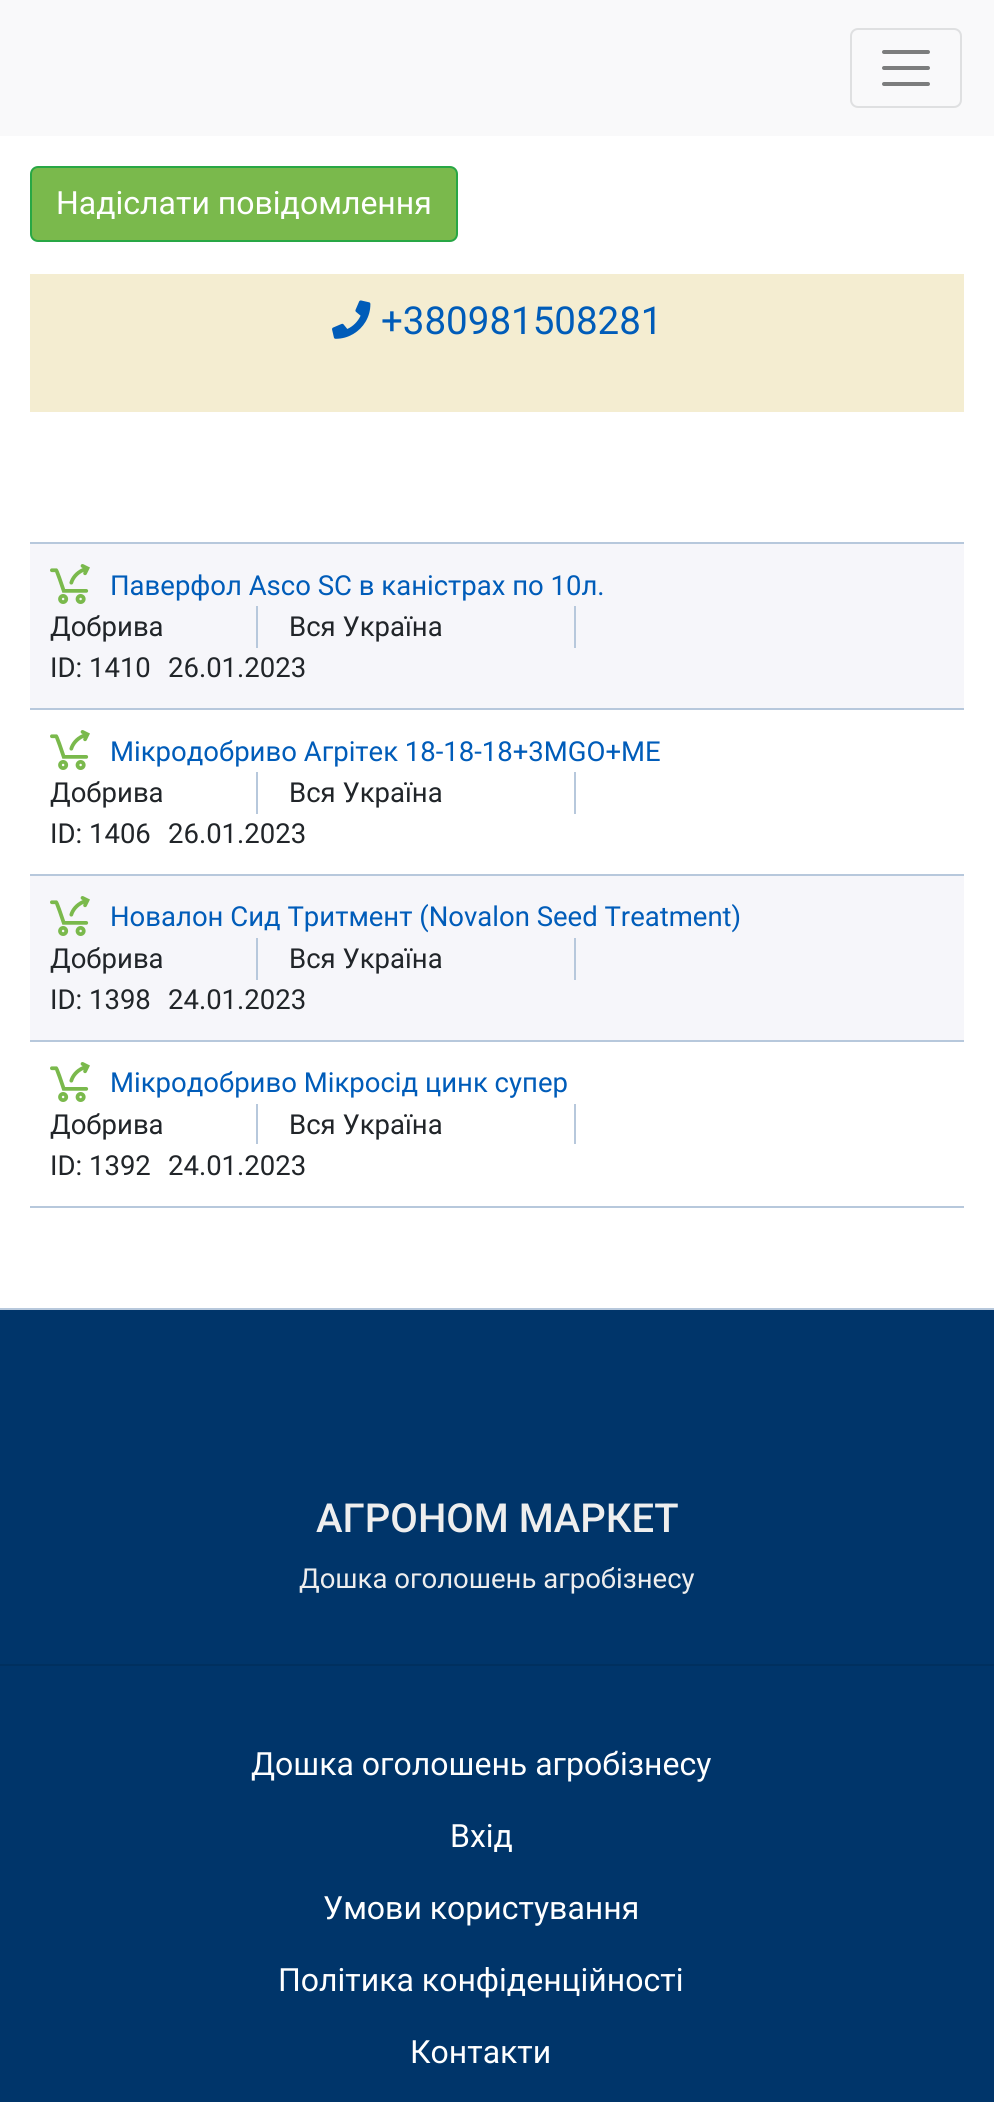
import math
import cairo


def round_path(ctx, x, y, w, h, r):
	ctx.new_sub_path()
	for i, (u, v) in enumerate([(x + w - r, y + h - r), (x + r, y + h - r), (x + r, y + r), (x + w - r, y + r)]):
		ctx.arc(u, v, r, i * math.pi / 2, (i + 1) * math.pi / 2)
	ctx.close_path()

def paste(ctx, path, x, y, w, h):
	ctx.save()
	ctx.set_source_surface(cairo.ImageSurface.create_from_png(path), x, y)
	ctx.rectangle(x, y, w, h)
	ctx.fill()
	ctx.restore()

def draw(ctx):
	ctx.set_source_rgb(1, 1, 1)
	ctx.paint()
	ctx.set_source_rgb(0.973, 0.976, 0.98)
	ctx.rectangle(0, 0, 994, 136)
	ctx.fill()
	round_path(ctx, 851, 29, 110, 78, 7)
	ctx.set_source_rgb(0.875, 0.878, 0.882)
	ctx.stroke()
	ctx.new_path()
	ctx.move_to(884, 52)
	ctx.line_to(928, 52)
	ctx.move_to(884, 68)
	ctx.line_to(928, 68)
	ctx.move_to(884, 84)
	ctx.line_to(928, 84)
	ctx.set_source_rgb(0.486, 0.49, 0.49)
	ctx.set_line_width(4)
	ctx.set_line_cap(cairo.LINE_CAP_ROUND)
	ctx.stroke()
	ctx.set_source_rgb(0.478, 0.725, 0.298)
	round_path(ctx, 31, 167, 426, 74, 7)
	ctx.fill_preserve()
	ctx.set_source_rgb(0.157, 0.655, 0.271)
	ctx.set_line_width(2)
	ctx.set_line_cap(cairo.LINE_CAP_BUTT)
	ctx.stroke()
	ctx.select_font_face('Roboto')
	ctx.set_font_size(32)
	ctx.set_source_rgb(1, 1, 1)
	ctx.move_to(56, 214)
	ctx.show_text('Надіслати повідомлення')
	ctx.set_source_rgb(0.957, 0.929, 0.82)
	ctx.rectangle(30, 274, 934, 138)
	ctx.fill()
	paste(ctx, 'media/1.png', 332, 300, 39, 39)
	ctx.set_font_size(38.5)
	ctx.set_source_rgb(0, 0.361, 0.725)
	ctx.move_to(381, 334)
	ctx.show_text('+380981508281')
	ctx.set_source_rgb(0.961, 0.961, 0.98)
	ctx.rectangle(30, 544, 934, 164)
	ctx.fill()
	ctx.set_source_rgb(0.718, 0.784, 0.863)
	ctx.rectangle(30, 542, 934, 2)
	ctx.rectangle(30, 708, 934, 2)
	ctx.fill()
	paste(ctx, 'media/2.png', 50, 564, 40, 40)
	ctx.set_font_size(27.5)
	ctx.set_source_rgb(0, 0.361, 0.725)
	ctx.move_to(110, 595)
	ctx.show_text('Паверфол Аscо SC в каністрах по 10л.')
	ctx.set_source_rgb(0.718, 0.784, 0.863)
	ctx.rectangle(256, 606, 2, 42)
	ctx.fill()
	ctx.set_source_rgb(0.129, 0.145, 0.161)
	ctx.move_to(50, 636)
	ctx.show_text('Добрива')
	ctx.set_source_rgb(0.718, 0.784, 0.863)
	ctx.rectangle(574, 606, 2, 42)
	ctx.fill()
	ctx.set_source_rgb(0.129, 0.145, 0.161)
	for x, y, s in [
		(289, 636, 'Вся Україна'),
		(50, 677, 'ID: 1410'),
		(168, 677, '26.01.2023'),
	]:
		ctx.move_to(x, y)
		ctx.show_text(s)
	ctx.set_source_rgb(0.718, 0.784, 0.863)
	ctx.rectangle(30, 874, 934, 2)
	ctx.fill()
	paste(ctx, 'media/3.png', 50, 730, 40, 40)
	ctx.set_source_rgb(0, 0.361, 0.725)
	ctx.move_to(110, 761)
	ctx.show_text('Мікродобриво Aгрітек 18-18-18+3MGO+ME')
	ctx.set_source_rgb(0.718, 0.784, 0.863)
	ctx.rectangle(256, 772, 2, 42)
	ctx.fill()
	ctx.set_source_rgb(0.129, 0.145, 0.161)
	ctx.move_to(50, 802)
	ctx.show_text('Добрива')
	ctx.set_source_rgb(0.718, 0.784, 0.863)
	ctx.rectangle(574, 772, 2, 42)
	ctx.fill()
	ctx.set_source_rgb(0.129, 0.145, 0.161)
	for x, y, s in [
		(289, 802, 'Вся Україна'),
		(50, 843, 'ID: 1406'),
		(168, 843, '26.01.2023'),
	]:
		ctx.move_to(x, y)
		ctx.show_text(s)
	ctx.set_source_rgb(0.961, 0.961, 0.98)
	ctx.rectangle(30, 876, 934, 164)
	ctx.fill()
	ctx.set_source_rgb(0.718, 0.784, 0.863)
	ctx.rectangle(30, 1040, 934, 2)
	ctx.fill()
	paste(ctx, 'media/2.png', 50, 896, 40, 40)
	ctx.set_source_rgb(0, 0.361, 0.725)
	ctx.move_to(110, 926)
	ctx.show_text('Новалон Сид Тритмент (Novalon Seed Treatment)')
	ctx.set_source_rgb(0.718, 0.784, 0.863)
	ctx.rectangle(256, 938, 2, 42)
	ctx.fill()
	ctx.set_source_rgb(0.129, 0.145, 0.161)
	ctx.move_to(50, 968)
	ctx.show_text('Добрива')
	ctx.set_source_rgb(0.718, 0.784, 0.863)
	ctx.rectangle(574, 938, 2, 42)
	ctx.fill()
	ctx.set_source_rgb(0.129, 0.145, 0.161)
	for x, y, s in [
		(289, 968, 'Вся Україна'),
		(50, 1009, 'ID: 1398'),
		(168, 1009, '24.01.2023'),
	]:
		ctx.move_to(x, y)
		ctx.show_text(s)
	ctx.set_source_rgb(0.718, 0.784, 0.863)
	ctx.rectangle(30, 1206, 934, 2)
	ctx.fill()
	paste(ctx, 'media/3.png', 50, 1062, 40, 40)
	ctx.set_source_rgb(0, 0.361, 0.725)
	ctx.move_to(110, 1092)
	ctx.show_text('Мікродобриво Мікросід цинк супер')
	ctx.set_source_rgb(0.718, 0.784, 0.863)
	ctx.rectangle(256, 1104, 2, 40)
	ctx.fill()
	ctx.set_source_rgb(0.129, 0.145, 0.161)
	ctx.move_to(50, 1134)
	ctx.show_text('Добрива')
	ctx.set_source_rgb(0.718, 0.784, 0.863)
	ctx.rectangle(574, 1104, 2, 40)
	ctx.fill()
	ctx.set_source_rgb(0.129, 0.145, 0.161)
	for x, y, s in [
		(289, 1134, 'Вся Україна'),
		(50, 1175, 'ID: 1392'),
		(168, 1175, '24.01.2023'),
	]:
		ctx.move_to(x, y)
		ctx.show_text(s)
	ctx.set_source_rgb(0, 0.208, 0.416)
	ctx.rectangle(0, 1310, 994, 792)
	ctx.fill()
	ctx.set_source_rgb(0.718, 0.784, 0.863)
	ctx.rectangle(0, 1308, 994, 2)
	ctx.fill()
	ctx.select_font_face('Roboto Medium')
	ctx.set_font_size(40)
	ctx.set_source_rgb(0.933, 0.933, 0.933)
	ctx.move_to(316, 1532)
	ctx.show_text('АГРОНОМ МАРКЕТ')
	ctx.select_font_face('Roboto')
	ctx.set_font_size(27.5)
	ctx.move_to(299, 1588)
	ctx.show_text('Дошка оголошень агробізнесу')
	ctx.set_source_rgb(0, 0.188, 0.373)
	ctx.rectangle(0, 1664, 994, 2)
	ctx.fill()
	ctx.set_font_size(32)
	ctx.set_source_rgb(1, 1, 1)
	for x, y, s in [
		(251, 1775, 'Дошка оголошень агробізнесу'),
		(450, 1847, 'Вхід'),
		(323, 1919, 'Умови користування'),
		(278, 1991, 'Політика конфіденційності'),
		(410, 2063, 'Контакти'),
	]:
		ctx.move_to(x, y)
		ctx.show_text(s)


surface = cairo.ImageSurface(cairo.FORMAT_RGB24, 994, 2102)
ctx = cairo.Context(surface)
options = cairo.FontOptions()
options.set_hint_metrics(cairo.HINT_METRICS_OFF)
options.set_hint_style(cairo.HINT_STYLE_NONE)
ctx.set_font_options(options)
ctx.set_miter_limit(4)
draw(ctx)
surface.write_to_png('image.png')
